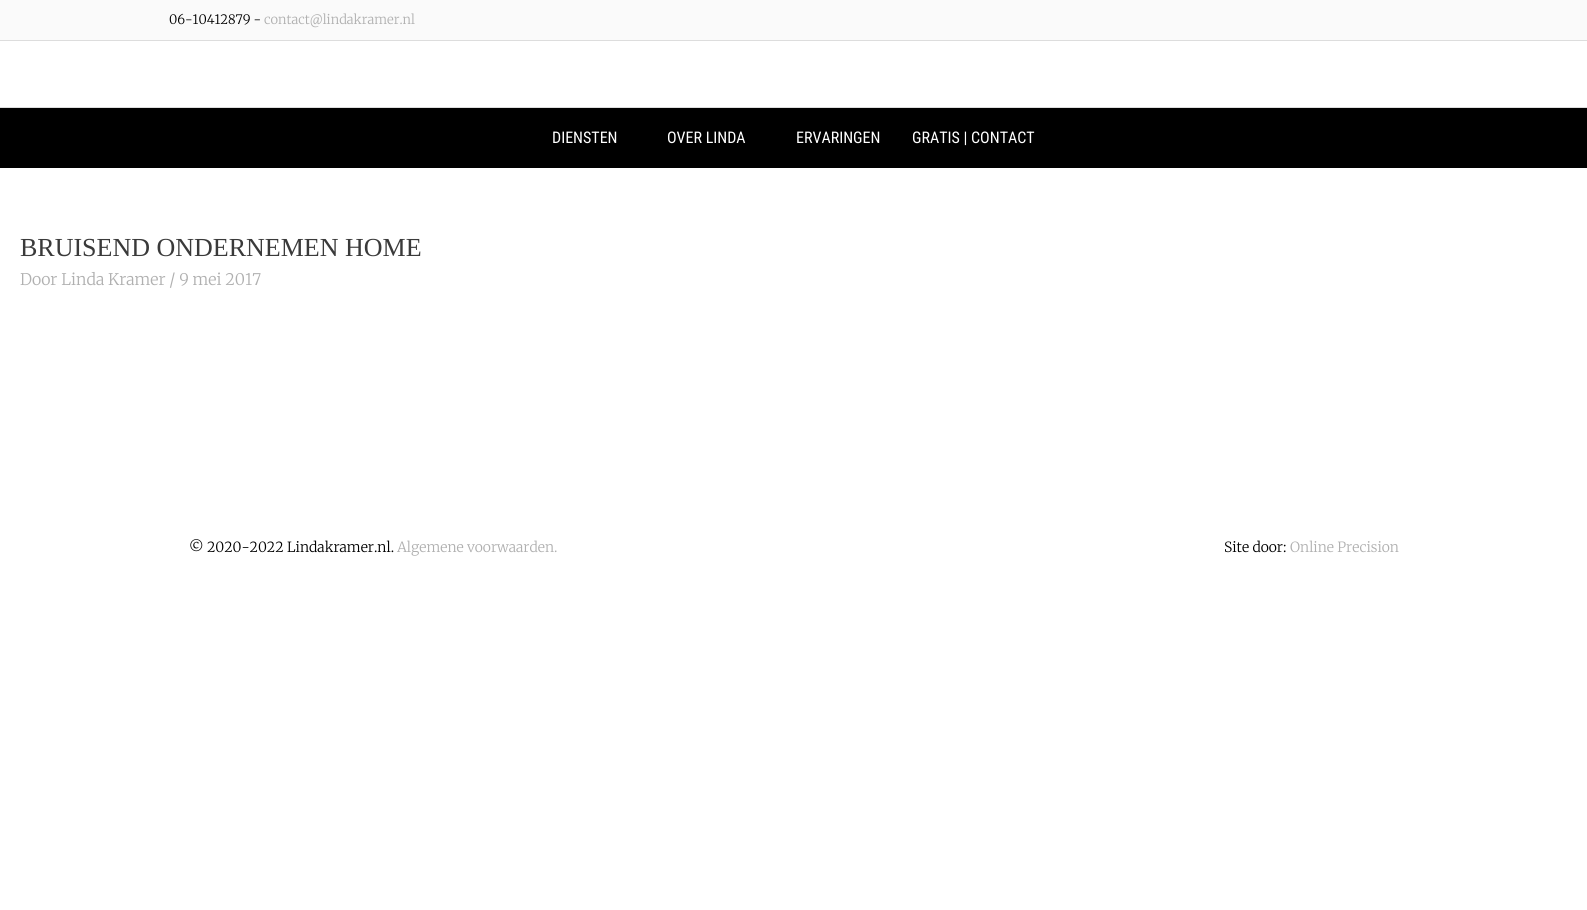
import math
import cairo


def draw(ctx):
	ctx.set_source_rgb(1, 1, 1)
	ctx.paint()
	ctx.set_source_rgb(0.98, 0.98, 0.98)
	ctx.rectangle(0, 0, 1587, 40)
	ctx.fill()
	ctx.set_source_rgb(0.867, 0.867, 0.867)
	ctx.rectangle(0, 40, 1587, 1)
	ctx.fill()
	ctx.select_font_face('Merriweather Light')
	ctx.set_font_size(13)
	ctx.set_source_rgb(0, 0, 0)
	ctx.move_to(169, 24)
	ctx.show_text('06-10412879 -')
	ctx.set_source_rgb(0.69, 0.69, 0.69)
	ctx.move_to(264, 24)
	ctx.show_text('contact@lindakramer.nl')
	ctx.set_source_rgb(0.867, 0.867, 0.867)
	ctx.rectangle(0, 107, 1587, 1)
	ctx.fill()
	ctx.set_source_rgb(0, 0, 0)
	ctx.rectangle(0, 108, 1587, 60)
	ctx.fill()
	ctx.select_font_face('Roboto Condensed')
	ctx.set_font_size(16)
	ctx.set_source_rgb(1, 1, 1)
	for x, y, s in [
		(552, 143, 'DIENSTEN'),
		(667, 143, 'OVER LINDA'),
		(796, 143, 'ERVARINGEN'),
		(912, 143, 'GRATIS | CONTACT'),
	]:
		ctx.move_to(x, y)
		ctx.show_text(s)
	ctx.select_font_face('Liberation Serif')
	ctx.set_font_size(26)
	ctx.set_source_rgb(0.227, 0.227, 0.227)
	ctx.move_to(20, 256)
	ctx.show_text('BRUISEND ONDERNEMEN HOME')
	ctx.select_font_face('Merriweather Light')
	ctx.set_font_size(16)
	ctx.set_source_rgb(0.69, 0.69, 0.69)
	ctx.move_to(20, 285)
	ctx.show_text('Door Linda Kramer / 9 mei 2017')
	ctx.set_font_size(14)
	ctx.set_source_rgb(0, 0, 0)
	ctx.move_to(189, 552)
	ctx.show_text('© 2020-2022 Lindakramer.nl.')
	ctx.set_source_rgb(0.69, 0.69, 0.69)
	ctx.move_to(397, 552)
	ctx.show_text('Algemene voorwaarden.')
	ctx.set_source_rgb(0, 0, 0)
	ctx.move_to(1224, 552)
	ctx.show_text('Site door:')
	ctx.set_source_rgb(0.69, 0.69, 0.69)
	ctx.move_to(1290, 552)
	ctx.show_text('Online Precision')


surface = cairo.ImageSurface(cairo.FORMAT_RGB24, 1587, 910)
ctx = cairo.Context(surface)
options = cairo.FontOptions()
options.set_hint_metrics(cairo.HINT_METRICS_OFF)
options.set_hint_style(cairo.HINT_STYLE_NONE)
ctx.set_font_options(options)
ctx.set_miter_limit(4)
draw(ctx)
surface.write_to_png('image.png')
